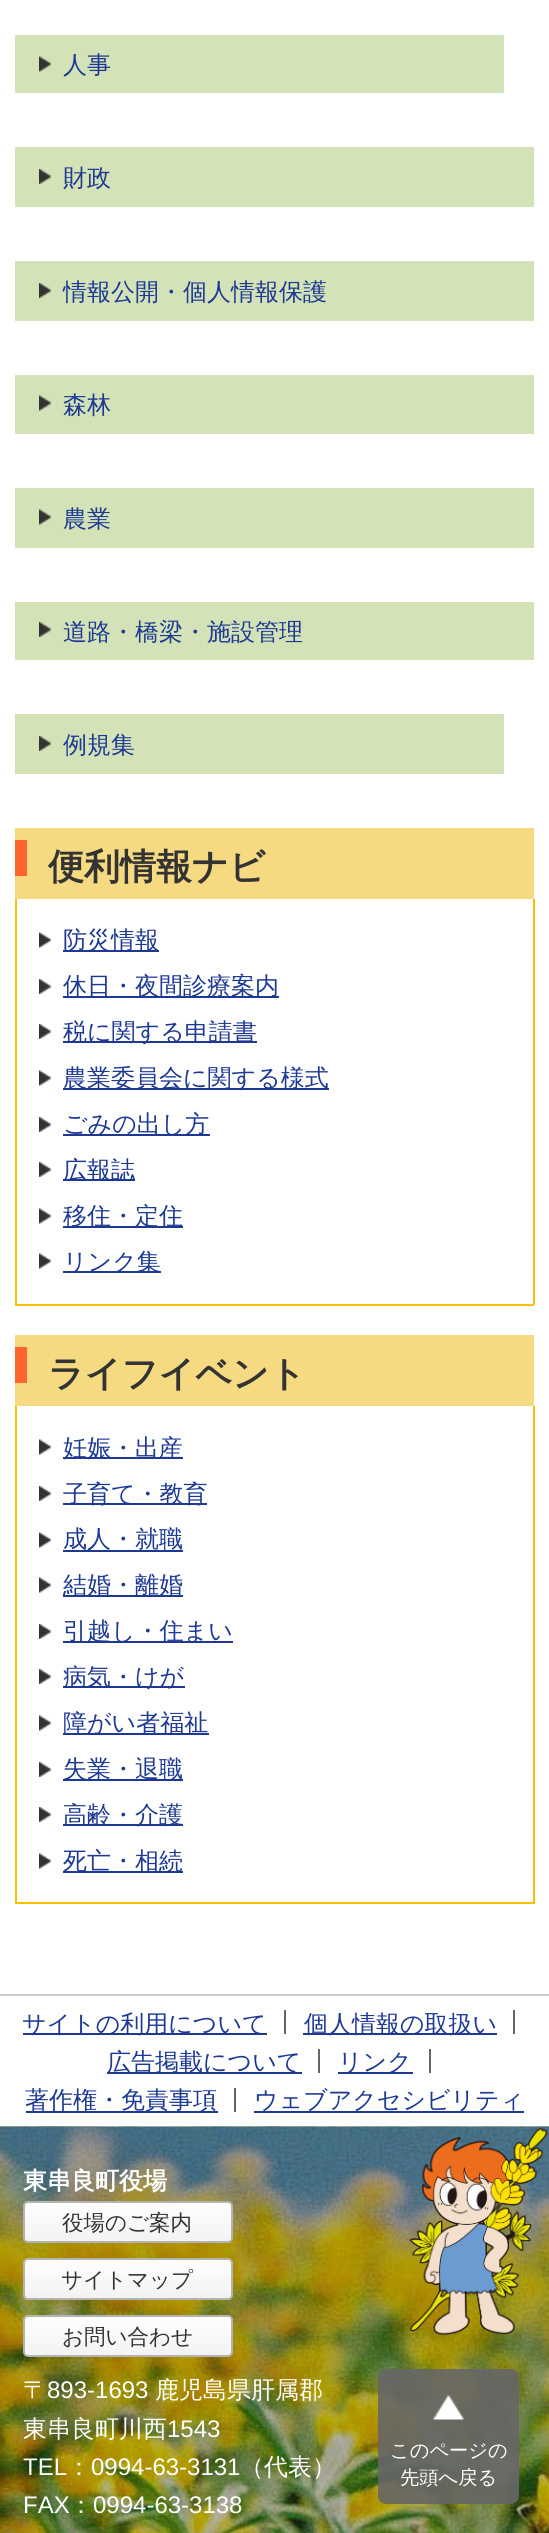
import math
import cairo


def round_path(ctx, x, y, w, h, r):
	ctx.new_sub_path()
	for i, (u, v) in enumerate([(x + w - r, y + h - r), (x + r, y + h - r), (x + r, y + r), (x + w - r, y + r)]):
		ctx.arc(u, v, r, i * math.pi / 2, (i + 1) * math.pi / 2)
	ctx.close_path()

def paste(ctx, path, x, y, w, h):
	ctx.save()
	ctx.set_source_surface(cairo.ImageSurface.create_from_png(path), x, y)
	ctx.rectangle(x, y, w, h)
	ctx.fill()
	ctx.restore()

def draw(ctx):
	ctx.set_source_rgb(1, 1, 1)
	ctx.paint()
	ctx.set_source_rgb(0.831, 0.89, 0.718)
	ctx.rectangle(15, 35, 489, 58)
	ctx.fill()
	paste(ctx, 'media/1.png', 39, 56, 12, 16)
	ctx.select_font_face('WenQuanYi Zen Hei Medium')
	ctx.set_font_size(24)
	ctx.set_source_rgb(0.114, 0.224, 0.58)
	ctx.move_to(63, 73)
	ctx.show_text('人事')
	ctx.set_source_rgb(0.831, 0.89, 0.718)
	ctx.rectangle(15, 147, 519, 60)
	ctx.fill()
	paste(ctx, 'media/2.png', 39, 169, 12, 15)
	ctx.set_source_rgb(0.114, 0.224, 0.58)
	ctx.move_to(63, 186)
	ctx.show_text('財政')
	ctx.set_source_rgb(0.831, 0.89, 0.718)
	ctx.rectangle(15, 261, 519, 60)
	ctx.fill()
	paste(ctx, 'media/2.png', 39, 283, 12, 15)
	ctx.set_source_rgb(0.114, 0.224, 0.58)
	ctx.move_to(63, 300)
	ctx.show_text('情報公開・個人情報保護')
	ctx.set_source_rgb(0.831, 0.89, 0.718)
	ctx.rectangle(15, 375, 519, 59)
	ctx.fill()
	paste(ctx, 'media/1.png', 39, 395, 12, 16)
	ctx.set_source_rgb(0.114, 0.224, 0.58)
	ctx.move_to(63, 413)
	ctx.show_text('森林')
	ctx.set_source_rgb(0.831, 0.89, 0.718)
	ctx.rectangle(15, 488, 519, 60)
	ctx.fill()
	paste(ctx, 'media/1.png', 39, 509, 12, 16)
	ctx.set_source_rgb(0.114, 0.224, 0.58)
	ctx.move_to(63, 527)
	ctx.show_text('農業')
	ctx.set_source_rgb(0.831, 0.89, 0.718)
	ctx.rectangle(15, 602, 519, 58)
	ctx.fill()
	paste(ctx, 'media/2.png', 39, 622, 12, 15)
	ctx.set_source_rgb(0.114, 0.224, 0.58)
	ctx.move_to(63, 640)
	ctx.show_text('道路・橋梁・施設管理')
	ctx.set_source_rgb(0.831, 0.89, 0.718)
	ctx.rectangle(15, 714, 489, 60)
	ctx.fill()
	paste(ctx, 'media/2.png', 39, 736, 12, 15)
	ctx.set_source_rgb(0.114, 0.224, 0.58)
	ctx.move_to(63, 753)
	ctx.show_text('例規集')
	ctx.set_source_rgb(0.961, 0.855, 0.506)
	ctx.rectangle(15, 828, 519, 71)
	ctx.fill()
	ctx.set_source_rgb(0.996, 0.392, 0.18)
	ctx.rectangle(15, 840, 12, 36)
	ctx.fill()
	ctx.select_font_face('WenQuanYi Zen Hei', cairo.FONT_SLANT_NORMAL, cairo.FONT_WEIGHT_BOLD)
	ctx.set_font_size(36)
	ctx.set_source_rgb(0.2, 0.2, 0.2)
	ctx.move_to(48, 879)
	ctx.show_text('便利情報ナビ')
	ctx.set_source_rgb(1, 0.749, 0)
	ctx.rectangle(533, 899, 2, 406)
	ctx.rectangle(15, 1304, 519, 2)
	ctx.rectangle(15, 899, 2, 406)
	ctx.fill()
	paste(ctx, 'media/3.png', 39, 932, 12, 16)
	ctx.set_source_rgb(0.114, 0.224, 0.58)
	ctx.rectangle(63, 950, 96, 2)
	ctx.fill()
	ctx.select_font_face('WenQuanYi Zen Hei Medium')
	ctx.set_font_size(24)
	ctx.move_to(63, 948)
	ctx.show_text('防災情報')
	paste(ctx, 'media/4.png', 39, 979, 12, 15)
	ctx.rectangle(63, 996, 216, 2)
	ctx.fill()
	ctx.move_to(63, 994)
	ctx.show_text('休日・夜間診療案内')
	paste(ctx, 'media/4.png', 39, 1024, 12, 15)
	ctx.rectangle(63, 1041, 194, 2)
	ctx.fill()
	ctx.move_to(63, 1040)
	ctx.show_text('税に関する申請書')
	paste(ctx, 'media/3.png', 39, 1070, 12, 16)
	ctx.rectangle(63, 1088, 266, 2)
	ctx.fill()
	ctx.move_to(63, 1086)
	ctx.show_text('農業委員会に関する様式')
	paste(ctx, 'media/4.png', 39, 1117, 12, 15)
	ctx.rectangle(63, 1134, 147, 2)
	ctx.fill()
	ctx.move_to(63, 1132)
	ctx.show_text('ごみの出し方')
	paste(ctx, 'media/4.png', 39, 1162, 12, 15)
	ctx.rectangle(63, 1179, 72, 2)
	ctx.fill()
	ctx.move_to(63, 1178)
	ctx.show_text('広報誌')
	paste(ctx, 'media/3.png', 39, 1208, 12, 16)
	ctx.rectangle(63, 1226, 120, 2)
	ctx.fill()
	ctx.move_to(63, 1224)
	ctx.show_text('移住・定住')
	paste(ctx, 'media/3.png', 39, 1253, 12, 16)
	ctx.rectangle(63, 1271, 98, 2)
	ctx.fill()
	ctx.move_to(63, 1270)
	ctx.show_text('リンク集')
	ctx.set_source_rgb(0.961, 0.855, 0.506)
	ctx.rectangle(15, 1335, 519, 71)
	ctx.fill()
	ctx.set_source_rgb(0.996, 0.392, 0.18)
	ctx.rectangle(15, 1347, 12, 36)
	ctx.fill()
	ctx.select_font_face('WenQuanYi Zen Hei', cairo.FONT_SLANT_NORMAL, cairo.FONT_WEIGHT_BOLD)
	ctx.set_font_size(36)
	ctx.set_source_rgb(0.2, 0.2, 0.2)
	ctx.move_to(48, 1386)
	ctx.show_text('ライフイベント')
	ctx.set_source_rgb(1, 0.749, 0)
	ctx.rectangle(533, 1406, 2, 498)
	ctx.rectangle(15, 1902, 519, 2)
	ctx.rectangle(15, 1406, 2, 498)
	ctx.fill()
	paste(ctx, 'media/3.png', 39, 1439, 12, 16)
	ctx.set_source_rgb(0.114, 0.224, 0.58)
	ctx.rectangle(63, 1457, 120, 2)
	ctx.fill()
	ctx.select_font_face('WenQuanYi Zen Hei Medium')
	ctx.set_font_size(24)
	ctx.move_to(63, 1456)
	ctx.show_text('妊娠・出産')
	paste(ctx, 'media/4.png', 39, 1486, 12, 15)
	ctx.rectangle(63, 1503, 144, 2)
	ctx.fill()
	ctx.move_to(63, 1502)
	ctx.show_text('子育て・教育')
	paste(ctx, 'media/3.png', 39, 1532, 12, 16)
	ctx.rectangle(63, 1550, 120, 2)
	ctx.fill()
	ctx.move_to(63, 1547)
	ctx.show_text('成人・就職')
	paste(ctx, 'media/3.png', 39, 1577, 12, 16)
	ctx.rectangle(63, 1595, 120, 2)
	ctx.fill()
	ctx.move_to(63, 1593)
	ctx.show_text('結婚・離婚')
	paste(ctx, 'media/4.png', 39, 1624, 12, 15)
	ctx.rectangle(63, 1641, 170, 2)
	ctx.fill()
	ctx.move_to(63, 1639)
	ctx.show_text('引越し・住まい')
	paste(ctx, 'media/4.png', 39, 1669, 12, 15)
	ctx.rectangle(63, 1686, 122, 2)
	ctx.fill()
	ctx.move_to(63, 1685)
	ctx.show_text('病気・けが')
	paste(ctx, 'media/3.png', 39, 1715, 12, 16)
	ctx.rectangle(63, 1733, 146, 2)
	ctx.fill()
	ctx.move_to(63, 1731)
	ctx.show_text('障がい者福祉')
	paste(ctx, 'media/4.png', 39, 1762, 12, 15)
	ctx.rectangle(63, 1779, 120, 2)
	ctx.fill()
	ctx.move_to(63, 1777)
	ctx.show_text('失業・退職')
	paste(ctx, 'media/4.png', 39, 1807, 12, 15)
	ctx.rectangle(63, 1824, 120, 2)
	ctx.fill()
	ctx.move_to(63, 1823)
	ctx.show_text('高齢・介護')
	paste(ctx, 'media/3.png', 39, 1853, 12, 16)
	ctx.rectangle(63, 1871, 120, 2)
	ctx.fill()
	ctx.move_to(63, 1869)
	ctx.show_text('死亡・相続')
	ctx.set_source_rgb(0.8, 0.8, 0.8)
	ctx.rectangle(0, 1994, 549, 2)
	ctx.fill()
	ctx.set_source_rgb(0.114, 0.224, 0.58)
	ctx.rectangle(23, 2033, 244, 2)
	ctx.fill()
	ctx.move_to(22, 2032)
	ctx.show_text('サイトの利用について')
	ctx.set_source_rgb(0.4, 0.4, 0.4)
	ctx.rectangle(284, 2010, 2, 24)
	ctx.fill()
	ctx.set_source_rgb(0.114, 0.224, 0.58)
	ctx.rectangle(303, 2033, 194, 2)
	ctx.fill()
	ctx.move_to(304, 2032)
	ctx.show_text('個人情報の取扱い')
	ctx.set_source_rgb(0.4, 0.4, 0.4)
	ctx.rectangle(513, 2010, 2, 24)
	ctx.fill()
	ctx.set_source_rgb(0.114, 0.224, 0.58)
	ctx.rectangle(107, 2072, 195, 2)
	ctx.fill()
	ctx.move_to(107, 2070)
	ctx.show_text('広告掲載について')
	ctx.set_source_rgb(0.4, 0.4, 0.4)
	ctx.rectangle(318, 2049, 2, 24)
	ctx.fill()
	ctx.set_source_rgb(0.114, 0.224, 0.58)
	ctx.rectangle(338, 2072, 75, 2)
	ctx.fill()
	ctx.move_to(338, 2070)
	ctx.show_text('リンク')
	ctx.set_source_rgb(0.4, 0.4, 0.4)
	ctx.rectangle(429, 2049, 2, 24)
	ctx.fill()
	ctx.set_source_rgb(0.114, 0.224, 0.58)
	ctx.rectangle(26, 2111, 192, 2)
	ctx.fill()
	ctx.move_to(25, 2108)
	ctx.show_text('著作権・免責事項')
	ctx.set_source_rgb(0.4, 0.4, 0.4)
	ctx.rectangle(234, 2088, 2, 24)
	ctx.fill()
	ctx.set_source_rgb(0.114, 0.224, 0.58)
	ctx.rectangle(254, 2111, 270, 2)
	ctx.fill()
	ctx.move_to(254, 2108)
	ctx.show_text('ウェブアクセシビリティ')
	ctx.set_source_rgb(0.8, 0.8, 0.8)
	ctx.rectangle(0, 2126, 549, 1)
	ctx.fill()
	paste(ctx, 'media/5.png', 0, 2126, 549, 407)
	ctx.select_font_face('WenQuanYi Zen Hei', cairo.FONT_SLANT_NORMAL, cairo.FONT_WEIGHT_BOLD)
	ctx.set_source_rgb(1, 1, 1)
	ctx.move_to(23, 2189)
	ctx.show_text('東串良町役場')
	gradient = cairo.LinearGradient(128, 2201, 128, 2243)
	gradient.add_color_stop_rgba(0, 1, 1, 1, 1)
	gradient.add_color_stop_rgba(1, 0.949, 0.949, 0.949, 1)
	ctx.set_source(gradient)
	round_path(ctx, 24, 2202, 208, 40, 4)
	ctx.fill_preserve()
	ctx.set_source_rgb(0.702, 0.702, 0.702)
	ctx.stroke()
	ctx.select_font_face('WenQuanYi Zen Hei Medium')
	ctx.set_font_size(21.5)
	ctx.set_source_rgb(0.2, 0.2, 0.2)
	ctx.move_to(62, 2230)
	ctx.show_text('役場のご案内')
	gradient = cairo.LinearGradient(128, 2258, 128, 2300)
	gradient.add_color_stop_rgba(0, 1, 1, 1, 1)
	gradient.add_color_stop_rgba(1, 0.949, 0.949, 0.949, 1)
	ctx.set_source(gradient)
	round_path(ctx, 24, 2259, 208, 40, 4)
	ctx.fill_preserve()
	ctx.set_source_rgb(0.702, 0.702, 0.702)
	ctx.stroke()
	ctx.set_source_rgb(0.2, 0.2, 0.2)
	ctx.move_to(61, 2287)
	ctx.show_text('サイトマップ')
	gradient = cairo.LinearGradient(128, 2315, 128, 2357)
	gradient.add_color_stop_rgba(0, 1, 1, 1, 1)
	gradient.add_color_stop_rgba(1, 0.949, 0.949, 0.949, 1)
	ctx.set_source(gradient)
	round_path(ctx, 24, 2316, 208, 40, 4)
	ctx.fill_preserve()
	ctx.set_source_rgb(0.702, 0.702, 0.702)
	ctx.stroke()
	ctx.set_source_rgb(0.2, 0.2, 0.2)
	ctx.move_to(62, 2344)
	ctx.show_text('お問い合わせ')
	ctx.set_font_size(24)
	ctx.set_source_rgb(1, 1, 1)
	ctx.move_to(23, 2398)
	ctx.show_text('〒')
	ctx.select_font_face('Liberation Sans')
	ctx.move_to(47, 2398)
	ctx.show_text('893-1693')
	ctx.select_font_face('WenQuanYi Zen Hei Medium')
	ctx.move_to(155, 2398)
	ctx.show_text('鹿児島県肝属郡')
	ctx.move_to(23, 2437)
	ctx.show_text('東串良町川西')
	ctx.select_font_face('Liberation Sans')
	ctx.move_to(167, 2437)
	ctx.show_text('1543')
	ctx.move_to(23, 2475)
	ctx.show_text('TEL')
	ctx.select_font_face('WenQuanYi Zen Hei Medium')
	ctx.move_to(67, 2475)
	ctx.show_text('：')
	ctx.select_font_face('Liberation Sans')
	ctx.move_to(91, 2475)
	ctx.show_text('0994-63-3131')
	ctx.select_font_face('WenQuanYi Zen Hei Medium')
	ctx.move_to(240, 2475)
	ctx.show_text('（代表）')
	ctx.select_font_face('Liberation Sans')
	ctx.move_to(23, 2513)
	ctx.show_text('FAX')
	ctx.select_font_face('WenQuanYi Zen Hei Medium')
	ctx.move_to(69, 2513)
	ctx.show_text('：')
	ctx.select_font_face('Liberation Sans')
	ctx.move_to(93, 2513)
	ctx.show_text('0994-63-3138')
	paste(ctx, 'media/6.png', 409, 2127, 139, 208)
	ctx.set_source_rgba(0.4, 0.4, 0.4, 0.9)
	round_path(ctx, 378, 2369, 141, 135, 8)
	ctx.fill()
	paste(ctx, 'media/7.png', 433, 2395, 31, 25)
	ctx.select_font_face('WenQuanYi Zen Hei Medium')
	ctx.set_font_size(19.25)
	ctx.set_source_rgb(1, 1, 1)
	ctx.move_to(390, 2457)
	ctx.show_text('このページの')
	ctx.move_to(400, 2484)
	ctx.show_text('先頭へ戻る')


surface = cairo.ImageSurface(cairo.FORMAT_RGB24, 549, 2533)
ctx = cairo.Context(surface)
options = cairo.FontOptions()
options.set_hint_metrics(cairo.HINT_METRICS_OFF)
options.set_hint_style(cairo.HINT_STYLE_NONE)
ctx.set_font_options(options)
ctx.set_miter_limit(4)
draw(ctx)
surface.write_to_png('image.png')
